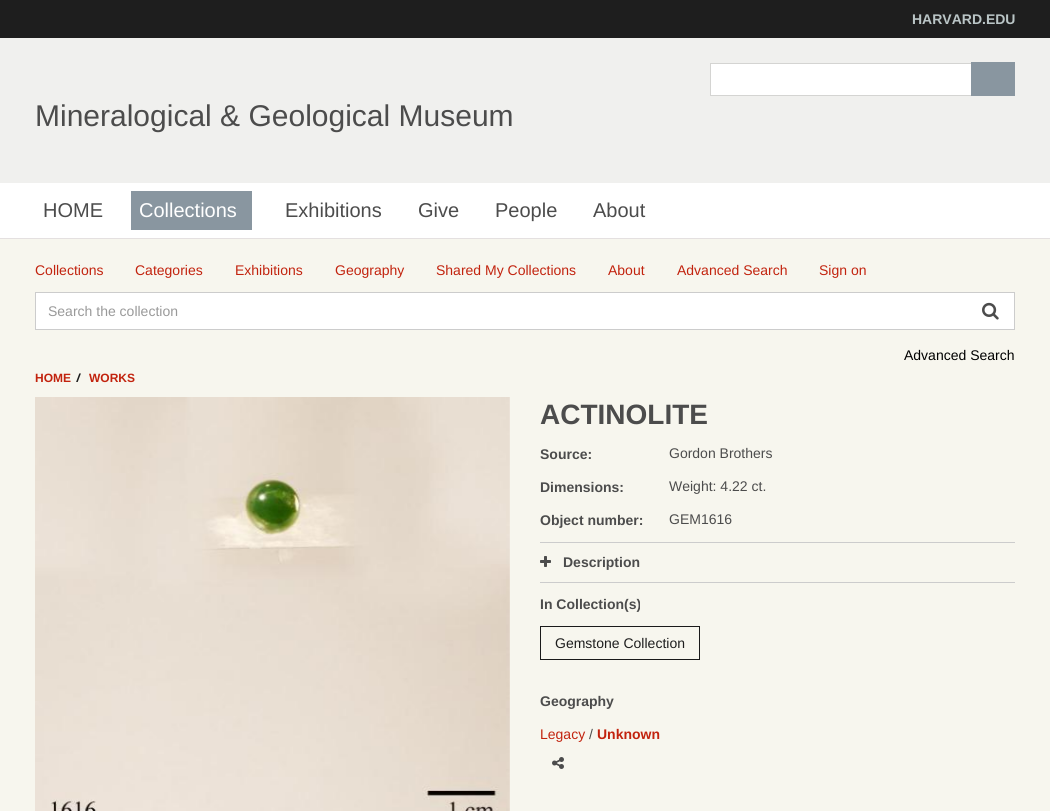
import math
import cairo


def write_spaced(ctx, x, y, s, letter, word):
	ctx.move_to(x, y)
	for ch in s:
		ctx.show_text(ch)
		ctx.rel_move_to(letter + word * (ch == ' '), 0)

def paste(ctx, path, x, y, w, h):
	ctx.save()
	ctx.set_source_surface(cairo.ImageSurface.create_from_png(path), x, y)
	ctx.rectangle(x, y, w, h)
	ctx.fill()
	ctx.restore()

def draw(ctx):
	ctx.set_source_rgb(0.118, 0.118, 0.118)
	ctx.paint()
	ctx.select_font_face('Liberation Sans', cairo.FONT_SLANT_NORMAL, cairo.FONT_WEIGHT_BOLD)
	ctx.set_font_size(14)
	ctx.set_source_rgb(0.729, 0.773, 0.776)
	ctx.move_to(912, 24)
	ctx.show_text('HARVARD.EDU')
	ctx.set_source_rgb(0.965, 0.961, 0.933)
	ctx.rectangle(0, 239, 1050, 572)
	ctx.fill()
	ctx.set_source_rgb(0.941, 0.941, 0.933)
	ctx.rectangle(0, 38, 1050, 145)
	ctx.fill()
	ctx.set_source_rgb(1, 1, 1)
	ctx.rectangle(711, 64, 260, 31)
	ctx.fill()
	ctx.rectangle(710.5, 63.5, 304, 32)
	ctx.set_source_rgb(0.831, 0.831, 0.824)
	ctx.set_line_width(1)
	ctx.stroke()
	ctx.set_source_rgb(0.537, 0.588, 0.627)
	ctx.rectangle(971, 62, 44, 34)
	ctx.fill()
	ctx.select_font_face('Liberation Sans')
	ctx.set_font_size(30)
	ctx.set_source_rgb(0.298, 0.298, 0.298)
	ctx.move_to(35, 126)
	ctx.show_text('Mineralogical & Geological Museum')
	ctx.set_source_rgb(1, 1, 1)
	ctx.rectangle(0, 183, 1050, 55)
	ctx.fill()
	ctx.set_source_rgb(0.894, 0.878, 0.878)
	ctx.rectangle(0, 238, 1050, 1)
	ctx.fill()
	ctx.set_font_size(20)
	ctx.set_source_rgb(0.298, 0.298, 0.298)
	ctx.move_to(43, 217)
	ctx.show_text('HOME')
	ctx.set_source_rgb(0.537, 0.588, 0.627)
	ctx.rectangle(131, 191, 121, 39)
	ctx.fill()
	ctx.set_source_rgb(1, 1, 1)
	ctx.move_to(139, 217)
	ctx.show_text('Collections')
	ctx.set_source_rgb(0.298, 0.298, 0.298)
	for x, y, s in [
		(285, 217, 'Exhibitions'),
		(418, 217, 'Give'),
		(495, 217, 'People'),
		(593, 217, 'About'),
	]:
		ctx.move_to(x, y)
		ctx.show_text(s)
	ctx.set_font_size(14)
	ctx.set_source_rgb(0.761, 0.137, 0.055)
	for x, y, s in [
		(35, 275, 'Collections'),
		(135, 275, 'Categories'),
		(235, 275, 'Exhibitions'),
		(335, 275, 'Geography'),
		(436, 275, 'Shared My Collections'),
		(608, 275, 'About'),
		(677, 275, 'Advanced Search'),
		(819, 275, 'Sign on'),
	]:
		ctx.move_to(x, y)
		ctx.show_text(s)
	ctx.set_source_rgb(1, 1, 1)
	ctx.rectangle(35.5, 292.5, 979, 37)
	ctx.fill_preserve()
	ctx.set_source_rgb(0.8, 0.8, 0.8)
	ctx.stroke()
	ctx.set_source_rgb(0.6, 0.6, 0.6)
	ctx.move_to(48, 316)
	ctx.show_text('Search the collection')
	paste(ctx, 'media/1.png', 982, 302, 17, 18)
	ctx.set_source_rgb(0, 0, 0)
	ctx.move_to(904, 360)
	ctx.show_text('Advanced Search')
	ctx.select_font_face('Liberation Sans', cairo.FONT_SLANT_NORMAL, cairo.FONT_WEIGHT_BOLD)
	ctx.set_font_size(12)
	ctx.set_source_rgb(0.761, 0.137, 0.055)
	ctx.move_to(35, 382)
	ctx.show_text('HOME')
	ctx.select_font_face('Open Sans', cairo.FONT_SLANT_NORMAL, cairo.FONT_WEIGHT_BOLD)
	ctx.set_source_rgb(0.118, 0.118, 0.118)
	write_spaced(ctx, 76, 382, '/', 1, 0)
	ctx.select_font_face('Liberation Sans', cairo.FONT_SLANT_NORMAL, cairo.FONT_WEIGHT_BOLD)
	ctx.set_source_rgb(0.761, 0.137, 0.055)
	ctx.move_to(89, 382)
	ctx.show_text('WORKS')
	paste(ctx, 'media/2.png', 35, 397, 475, 414)
	ctx.set_font_size(28)
	ctx.set_source_rgb(0.298, 0.298, 0.298)
	ctx.move_to(540, 424)
	ctx.show_text('ACTINOLITE')
	ctx.set_font_size(14)
	ctx.move_to(540, 459)
	ctx.show_text('Source:')
	ctx.select_font_face('Liberation Sans')
	ctx.move_to(669, 458)
	ctx.show_text('Gordon Brothers')
	ctx.select_font_face('Liberation Sans', cairo.FONT_SLANT_NORMAL, cairo.FONT_WEIGHT_BOLD)
	ctx.move_to(540, 492)
	ctx.show_text('Dimensions:')
	ctx.select_font_face('Liberation Sans')
	ctx.move_to(669, 491)
	ctx.show_text('Weight: 4.22 ct.')
	ctx.select_font_face('Liberation Sans', cairo.FONT_SLANT_NORMAL, cairo.FONT_WEIGHT_BOLD)
	ctx.move_to(540, 525)
	ctx.show_text('Object number:')
	ctx.select_font_face('Liberation Sans')
	ctx.move_to(669, 524)
	ctx.show_text('GEM1616')
	ctx.set_source_rgb(0.8, 0.8, 0.8)
	ctx.rectangle(540, 542, 475, 1)
	ctx.fill()
	ctx.rectangle(540, 582, 475, 1)
	ctx.fill()
	paste(ctx, 'media/3.png', 540, 556, 11, 11)
	ctx.select_font_face('Liberation Sans', cairo.FONT_SLANT_NORMAL, cairo.FONT_WEIGHT_BOLD)
	ctx.set_source_rgb(0.298, 0.298, 0.298)
	ctx.move_to(563, 567)
	ctx.show_text('Description')
	ctx.move_to(540, 609)
	ctx.show_text('In Collection(s)')
	ctx.rectangle(540.5, 626.5, 159, 33)
	ctx.set_source_rgb(0.102, 0.102, 0.102)
	ctx.stroke()
	ctx.select_font_face('Liberation Sans')
	ctx.set_source_rgb(0.118, 0.118, 0.118)
	ctx.move_to(555, 648)
	ctx.show_text('Gemstone Collection')
	ctx.select_font_face('Liberation Sans', cairo.FONT_SLANT_NORMAL, cairo.FONT_WEIGHT_BOLD)
	ctx.set_source_rgb(0.298, 0.298, 0.298)
	ctx.move_to(540, 706)
	ctx.show_text('Geography')
	ctx.select_font_face('Liberation Sans')
	ctx.set_source_rgb(0.761, 0.137, 0.055)
	ctx.move_to(540, 739)
	ctx.show_text('Legacy')
	ctx.set_source_rgb(0.298, 0.298, 0.298)
	ctx.move_to(589, 739)
	ctx.show_text('/')
	ctx.select_font_face('Liberation Sans', cairo.FONT_SLANT_NORMAL, cairo.FONT_WEIGHT_BOLD)
	ctx.set_source_rgb(0.761, 0.137, 0.055)
	ctx.move_to(597, 739)
	ctx.show_text('Unknown')
	paste(ctx, 'media/4.png', 552, 757, 12, 12)


surface = cairo.ImageSurface(cairo.FORMAT_RGB24, 1050, 811)
ctx = cairo.Context(surface)
options = cairo.FontOptions()
options.set_hint_metrics(cairo.HINT_METRICS_OFF)
options.set_hint_style(cairo.HINT_STYLE_NONE)
ctx.set_font_options(options)
ctx.set_miter_limit(4)
draw(ctx)
surface.write_to_png('image.png')
